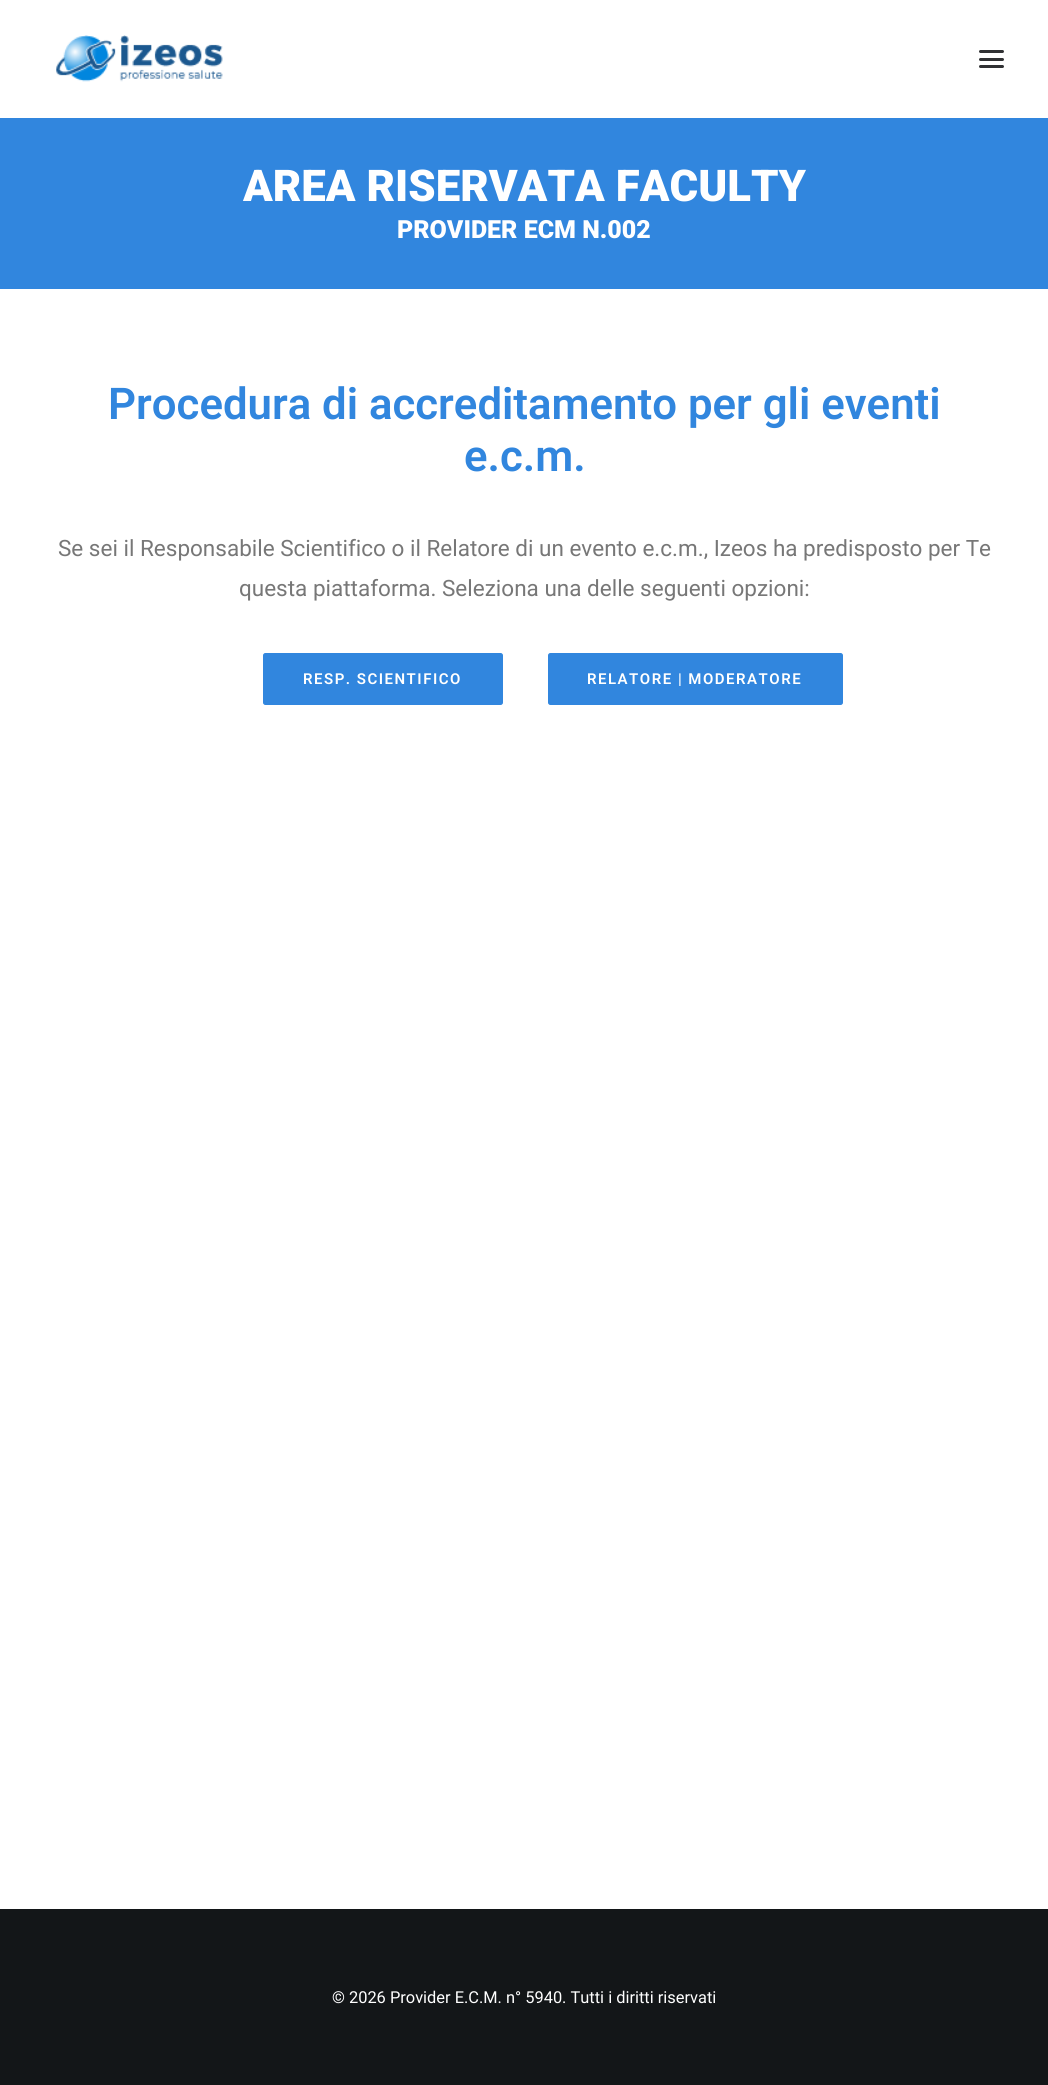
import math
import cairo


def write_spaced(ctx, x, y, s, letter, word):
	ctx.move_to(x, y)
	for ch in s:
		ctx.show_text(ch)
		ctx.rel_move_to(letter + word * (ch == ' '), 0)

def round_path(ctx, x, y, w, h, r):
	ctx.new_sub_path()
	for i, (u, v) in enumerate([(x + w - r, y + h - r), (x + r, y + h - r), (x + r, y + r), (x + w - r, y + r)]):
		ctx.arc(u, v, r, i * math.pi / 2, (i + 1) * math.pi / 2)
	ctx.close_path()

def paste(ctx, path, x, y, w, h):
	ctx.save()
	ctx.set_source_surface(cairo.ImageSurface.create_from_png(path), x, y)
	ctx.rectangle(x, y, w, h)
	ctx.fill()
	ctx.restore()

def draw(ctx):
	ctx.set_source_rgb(1, 1, 1)
	ctx.paint()
	paste(ctx, 'media/1.png', 56, 35, 167, 47)
	ctx.set_source_rgb(0.188, 0.192, 0.2)
	round_path(ctx, 979, 58, 25, 3, 1.5)
	ctx.fill()
	round_path(ctx, 979, 50, 25, 3, 1.5)
	ctx.fill()
	round_path(ctx, 979, 65, 25, 3, 1.5)
	ctx.fill()
	ctx.set_source_rgb(0.192, 0.525, 0.871)
	ctx.rectangle(0, 118, 1048, 171)
	ctx.fill()
	ctx.select_font_face('Roboto Black')
	ctx.set_font_size(43.75)
	ctx.set_source_rgb(1, 1, 1)
	ctx.move_to(243, 201)
	ctx.show_text('AREA RISERVATA FACULTY')
	ctx.set_font_size(25)
	ctx.move_to(397, 238)
	ctx.show_text('PROVIDER ECM N.002')
	ctx.select_font_face('Roboto SemiBold')
	ctx.set_font_size(43.75)
	ctx.set_source_rgb(0.192, 0.525, 0.871)
	ctx.move_to(108, 419)
	ctx.show_text('Procedura di accreditamento per gli eventi')
	ctx.move_to(464, 471)
	ctx.show_text('e.c.m.')
	ctx.select_font_face('Roboto')
	ctx.set_font_size(22.5)
	ctx.set_source_rgb(0.467, 0.467, 0.467)
	ctx.move_to(58, 556)
	ctx.show_text('Se sei il Responsabile Scientifico o il Relatore di un evento e.c.m., Izeos ha predisposto per Te')
	ctx.move_to(239, 596)
	ctx.show_text('questa piattaforma. Seleziona una delle seguenti opzioni:')
	ctx.set_source_rgb(0.192, 0.525, 0.871)
	round_path(ctx, 263.5, 653.5, 239, 51, 2)
	ctx.fill_preserve()
	ctx.set_line_width(1)
	ctx.stroke()
	ctx.select_font_face('Roboto SemiBold')
	ctx.set_font_size(15)
	ctx.set_source_rgb(1, 1, 1)
	write_spaced(ctx, 303, 684, 'RESP. SCIENTIFICO', 1.5, 0)
	ctx.set_source_rgb(0.192, 0.525, 0.871)
	round_path(ctx, 548.5, 653.5, 294, 51, 2)
	ctx.fill_preserve()
	ctx.stroke()
	ctx.set_source_rgb(1, 1, 1)
	write_spaced(ctx, 587, 684, 'RELATORE | MODERATORE', 1.5, 0)
	ctx.set_source_rgb(0.078, 0.086, 0.094)
	ctx.rectangle(0, 1909, 1048, 176)
	ctx.fill()
	ctx.select_font_face('Roboto')
	ctx.set_font_size(16.4)
	ctx.set_source_rgb(1, 1, 1)
	ctx.move_to(332, 2003)
	ctx.show_text('© 2026 Provider E.C.M. n° 5940. Tutti i diritti riservati')


surface = cairo.ImageSurface(cairo.FORMAT_RGB24, 1048, 2085)
ctx = cairo.Context(surface)
options = cairo.FontOptions()
options.set_hint_metrics(cairo.HINT_METRICS_OFF)
options.set_hint_style(cairo.HINT_STYLE_NONE)
ctx.set_font_options(options)
ctx.set_miter_limit(4)
draw(ctx)
surface.write_to_png('image.png')
